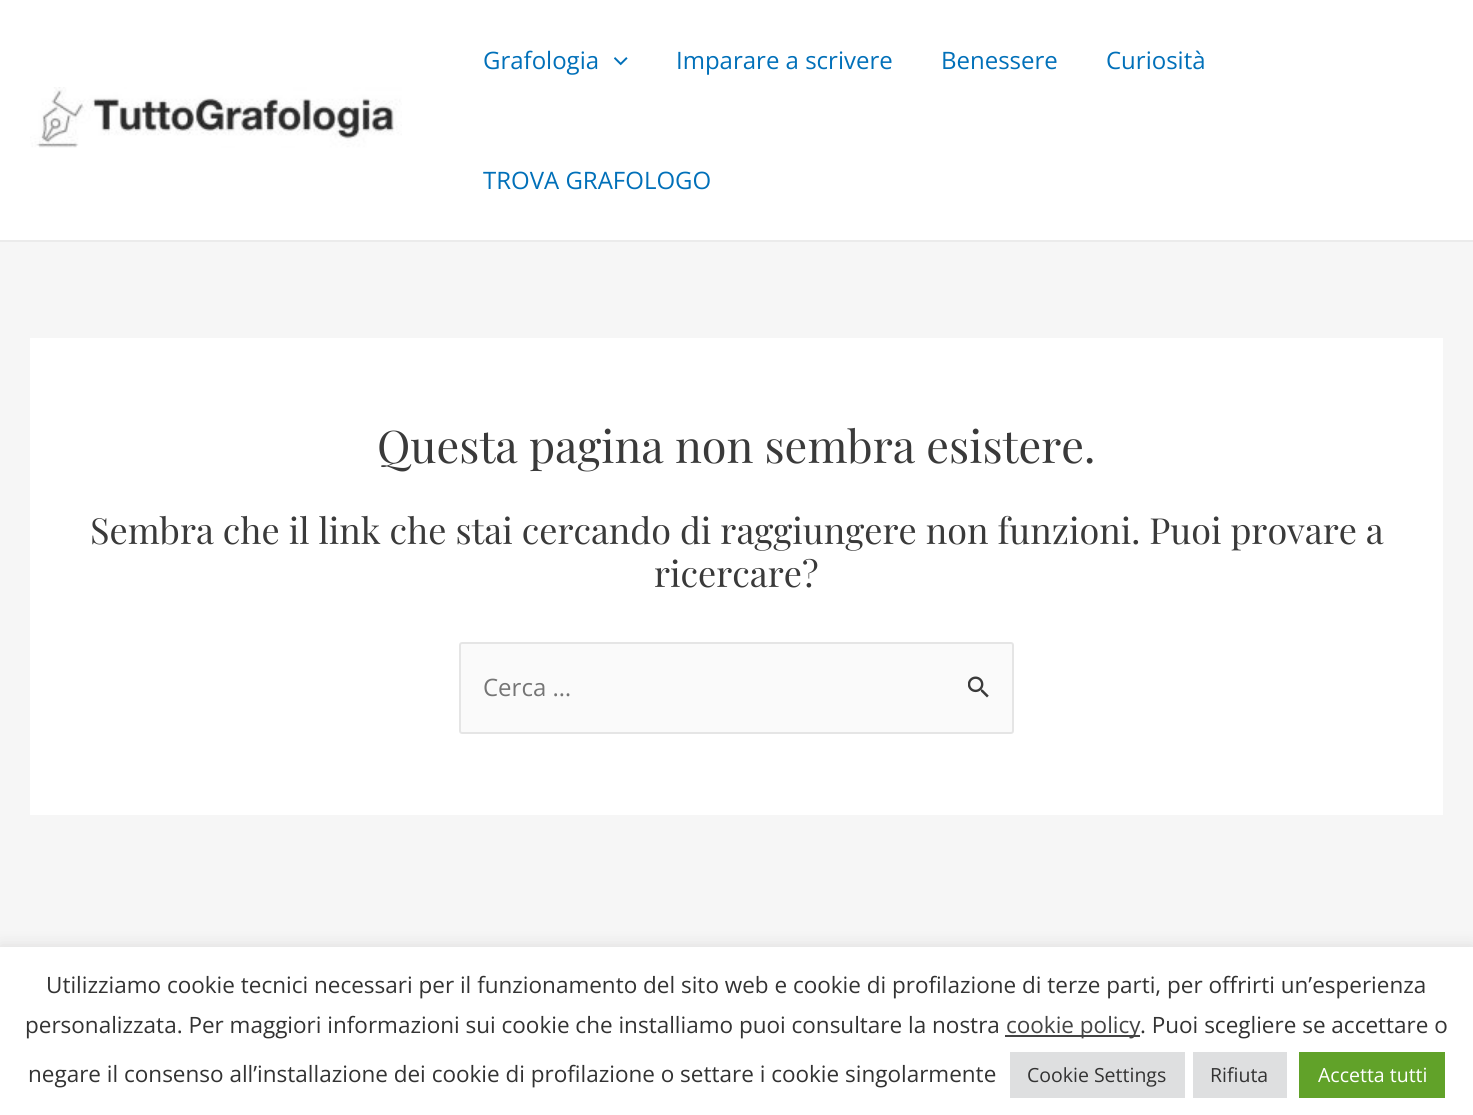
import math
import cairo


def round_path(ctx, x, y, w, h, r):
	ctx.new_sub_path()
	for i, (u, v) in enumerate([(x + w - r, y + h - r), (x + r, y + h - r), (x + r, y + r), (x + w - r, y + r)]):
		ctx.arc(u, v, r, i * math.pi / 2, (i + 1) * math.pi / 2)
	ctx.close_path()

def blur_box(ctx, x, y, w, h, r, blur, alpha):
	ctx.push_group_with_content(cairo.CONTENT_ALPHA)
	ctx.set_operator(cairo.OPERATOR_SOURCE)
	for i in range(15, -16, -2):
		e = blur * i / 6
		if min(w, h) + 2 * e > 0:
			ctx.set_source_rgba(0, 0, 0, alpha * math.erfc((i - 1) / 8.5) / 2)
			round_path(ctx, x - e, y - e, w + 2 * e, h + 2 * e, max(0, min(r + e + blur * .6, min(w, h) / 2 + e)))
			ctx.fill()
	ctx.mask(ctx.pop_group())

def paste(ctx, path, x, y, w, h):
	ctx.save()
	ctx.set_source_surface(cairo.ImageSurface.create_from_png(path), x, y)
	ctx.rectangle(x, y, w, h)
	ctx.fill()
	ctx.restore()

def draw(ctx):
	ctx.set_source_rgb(0.961, 0.961, 0.961)
	ctx.paint()
	ctx.set_source_rgb(1, 1, 1)
	ctx.rectangle(0, 0, 1473, 240)
	ctx.fill()
	ctx.set_source_rgb(0.918, 0.918, 0.918)
	ctx.rectangle(0, 240, 1473, 2)
	ctx.fill()
	paste(ctx, 'media/1.png', 30, 87, 372, 61)
	ctx.select_font_face('Open Sans')
	ctx.set_font_size(24)
	ctx.set_source_rgb(0.004, 0.439, 0.725)
	ctx.move_to(483, 69)
	ctx.show_text('Grafologia')
	paste(ctx, 'media/2.png', 614, 57, 14, 9)
	for x, y, s in [
		(676, 69, 'Imparare a scrivere'),
		(941, 69, 'Benessere'),
		(1106, 69, 'Curiosità'),
		(483, 189, 'TROVA GRAFOLOGO'),
	]:
		ctx.move_to(x, y)
		ctx.show_text(s)
	ctx.set_source_rgb(1, 1, 1)
	ctx.rectangle(30, 338, 1413, 477)
	ctx.fill()
	ctx.select_font_face('Playfair Display')
	ctx.set_font_size(45)
	ctx.set_source_rgb(0.227, 0.227, 0.227)
	ctx.move_to(377, 463)
	ctx.show_text('Questa pagina non sembra esistere.')
	ctx.set_font_size(36)
	ctx.move_to(90, 544)
	ctx.show_text('Sembra che il link che stai cercando di raggiungere non funzioni. Puoi provare a')
	ctx.move_to(654, 587)
	ctx.show_text('ricercare?')
	ctx.set_source_rgb(0.98, 0.98, 0.98)
	round_path(ctx, 460, 643, 553, 90, 2)
	ctx.fill_preserve()
	ctx.set_source_rgb(0.898, 0.898, 0.898)
	ctx.stroke()
	ctx.select_font_face('Open Sans')
	ctx.set_font_size(24)
	ctx.set_source_rgb(0.459, 0.459, 0.459)
	ctx.move_to(483, 696)
	ctx.show_text('Cerca …')
	paste(ctx, 'media/3.png', 968, 676, 21, 22)
	ctx.set_source_rgb(0.675, 0.671, 0.671)
	blur_box(ctx, 0, 945, 1473, 170, 0, 7.5, 0.3)
	ctx.set_source_rgb(1, 1, 1)
	ctx.rectangle(0, 947, 1473, 168)
	ctx.fill()
	ctx.set_font_size(22.5)
	ctx.set_source_rgb(0.2, 0.2, 0.2)
	ctx.move_to(46, 993)
	ctx.show_text('Utilizziamo cookie tecnici necessari per il funzionamento del sito web e cookie di profilazione di terze parti, per offrirti un’esperienza')
	ctx.move_to(25, 1033)
	ctx.show_text('personalizzata. Per maggiori informazioni sui cookie che installiamo puoi consultare la nostra')
	ctx.set_source_rgb(0.267, 0.267, 0.267)
	ctx.rectangle(1005, 1035, 135, 2)
	ctx.fill()
	ctx.move_to(1006, 1033)
	ctx.show_text('cookie policy')
	ctx.set_source_rgb(0.2, 0.2, 0.2)
	ctx.move_to(1140, 1033)
	ctx.show_text('. Puoi scegliere se accettare o')
	ctx.move_to(28, 1082)
	ctx.show_text('negare il consenso all’installazione dei cookie di profilazione o settare i cookie singolarmente')
	ctx.set_source_rgb(0.871, 0.875, 0.878)
	ctx.rectangle(1010, 1052, 175, 46)
	ctx.fill()
	ctx.set_font_size(19.5)
	ctx.set_source_rgb(0.2, 0.2, 0.2)
	ctx.move_to(1027, 1082)
	ctx.show_text('Cookie Settings')
	ctx.set_source_rgb(0.871, 0.875, 0.878)
	ctx.rectangle(1193, 1052, 94, 46)
	ctx.fill()
	ctx.set_source_rgb(0.2, 0.2, 0.2)
	ctx.move_to(1210, 1082)
	ctx.show_text('Rifiuta')
	ctx.set_source_rgb(0.38, 0.635, 0.161)
	ctx.rectangle(1299, 1052, 146, 46)
	ctx.fill()
	ctx.set_source_rgb(1, 1, 1)
	ctx.move_to(1318, 1082)
	ctx.show_text('Accetta tutti')


surface = cairo.ImageSurface(cairo.FORMAT_RGB24, 1473, 1115)
ctx = cairo.Context(surface)
options = cairo.FontOptions()
options.set_hint_metrics(cairo.HINT_METRICS_OFF)
options.set_hint_style(cairo.HINT_STYLE_NONE)
ctx.set_font_options(options)
ctx.set_miter_limit(4)
draw(ctx)
surface.write_to_png('image.png')
